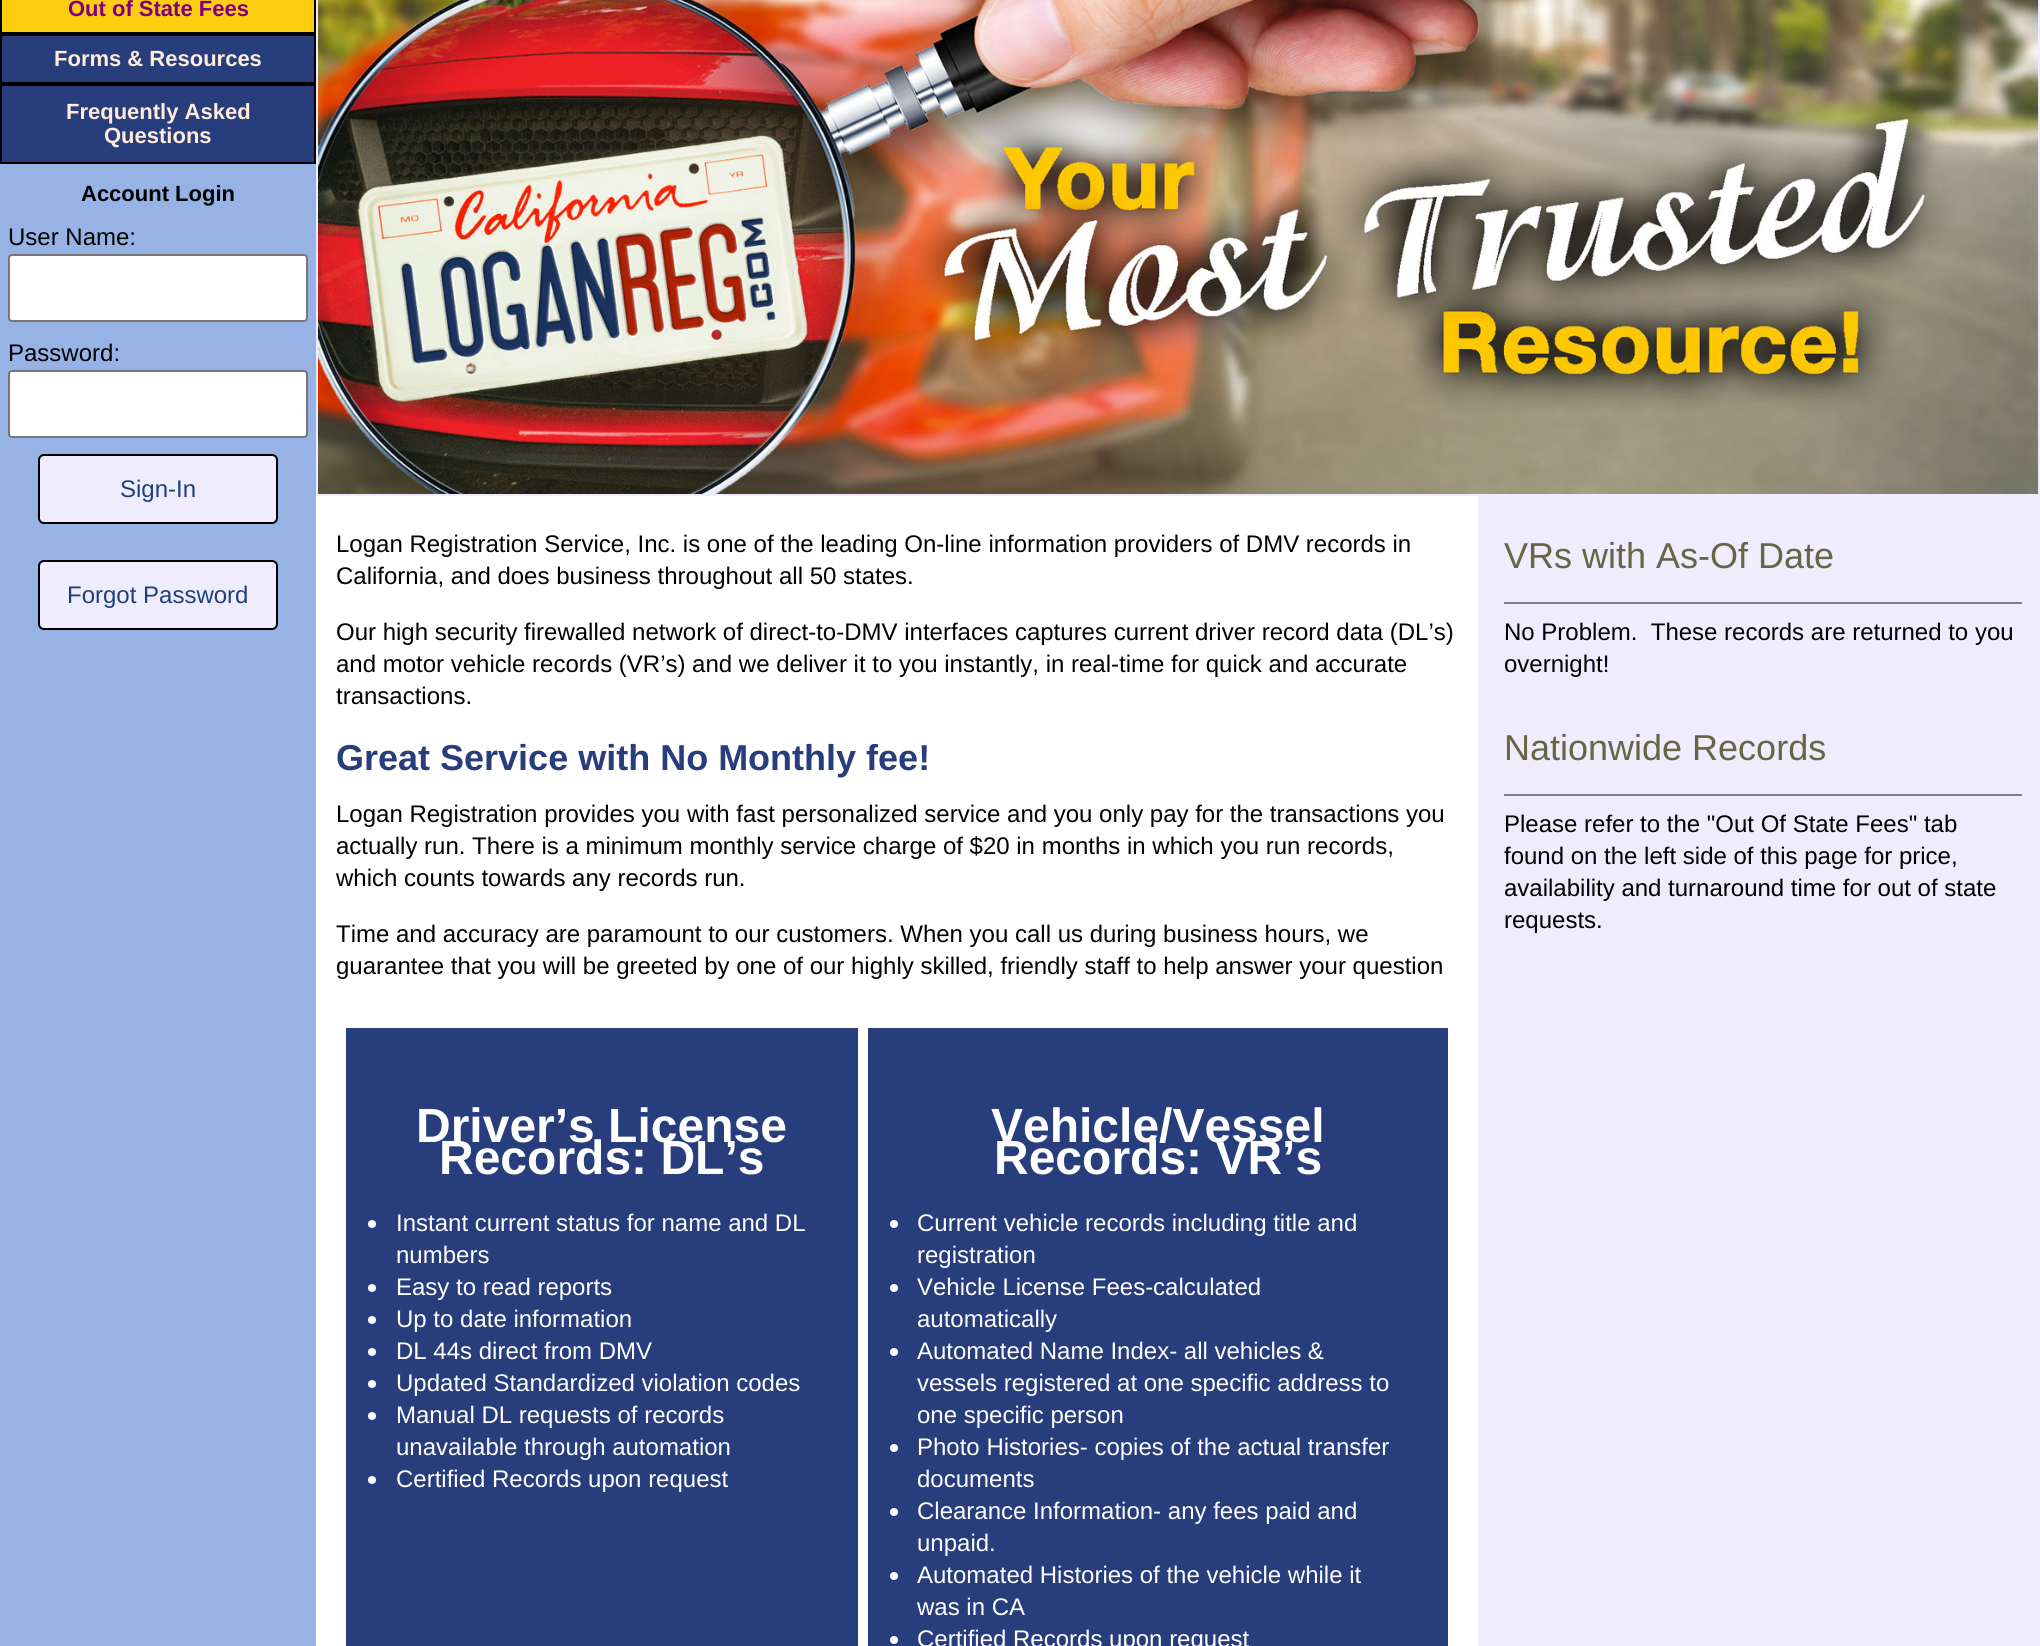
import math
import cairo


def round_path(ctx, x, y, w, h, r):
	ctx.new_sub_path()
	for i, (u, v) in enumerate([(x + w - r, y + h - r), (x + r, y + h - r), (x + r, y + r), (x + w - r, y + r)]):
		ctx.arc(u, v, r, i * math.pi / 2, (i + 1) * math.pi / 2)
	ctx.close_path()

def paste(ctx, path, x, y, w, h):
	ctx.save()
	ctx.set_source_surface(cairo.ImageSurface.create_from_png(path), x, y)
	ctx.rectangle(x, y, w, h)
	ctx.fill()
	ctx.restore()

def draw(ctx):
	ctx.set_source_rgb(0.933, 0.925, 0.992)
	ctx.paint()
	ctx.set_source_rgb(0.592, 0.702, 0.902)
	ctx.rectangle(0, 164, 316, 1482)
	ctx.fill()
	ctx.set_source_rgb(0.988, 0.808, 0.059)
	ctx.rectangle(1, -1, 314, 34)
	ctx.fill_preserve()
	ctx.set_source_rgb(0, 0, 0)
	ctx.stroke()
	ctx.select_font_face('Liberation Sans', cairo.FONT_SLANT_NORMAL, cairo.FONT_WEIGHT_BOLD)
	ctx.set_font_size(22)
	ctx.set_source_rgb(0.502, 0, 0.502)
	ctx.move_to(68, 16)
	ctx.show_text('Out of State Fees')
	ctx.set_source_rgb(0.157, 0.239, 0.482)
	ctx.rectangle(1, 35, 314, 48)
	ctx.fill_preserve()
	ctx.set_source_rgb(0, 0, 0)
	ctx.stroke()
	ctx.set_source_rgb(1, 0.922, 0.863)
	ctx.move_to(54, 66)
	ctx.show_text('Forms & Resources')
	ctx.set_source_rgb(0.157, 0.239, 0.482)
	ctx.rectangle(1, 85, 314, 78)
	ctx.fill_preserve()
	ctx.set_source_rgb(0, 0, 0)
	ctx.stroke()
	ctx.set_source_rgb(1, 0.922, 0.863)
	ctx.move_to(66, 119)
	ctx.show_text('Frequently Asked')
	ctx.move_to(104, 143)
	ctx.show_text('Questions')
	ctx.set_source_rgb(0, 0, 0)
	ctx.move_to(81, 201)
	ctx.show_text('Account Login')
	ctx.select_font_face('Liberation Sans')
	ctx.set_font_size(24)
	ctx.move_to(8, 245)
	ctx.show_text('User Name:')
	ctx.set_source_rgb(1, 1, 1)
	round_path(ctx, 9, 255, 298, 66, 3)
	ctx.fill_preserve()
	ctx.set_source_rgb(0.463, 0.463, 0.463)
	ctx.stroke()
	ctx.set_source_rgb(0, 0, 0)
	ctx.move_to(8, 361)
	ctx.show_text('Password:')
	ctx.set_source_rgb(1, 1, 1)
	round_path(ctx, 9, 371, 298, 66, 3)
	ctx.fill_preserve()
	ctx.set_source_rgb(0.463, 0.463, 0.463)
	ctx.stroke()
	ctx.set_source_rgb(0.933, 0.925, 0.992)
	round_path(ctx, 39, 455, 238, 68, 5)
	ctx.fill_preserve()
	ctx.set_source_rgb(0, 0, 0)
	ctx.stroke()
	ctx.set_source_rgb(0.122, 0.251, 0.486)
	ctx.move_to(120, 497)
	ctx.show_text('Sign-In')
	ctx.set_source_rgb(0.933, 0.925, 0.992)
	round_path(ctx, 39, 561, 238, 68, 5)
	ctx.fill_preserve()
	ctx.set_source_rgb(0, 0, 0)
	ctx.stroke()
	ctx.set_source_rgb(0.122, 0.251, 0.486)
	ctx.move_to(67, 603)
	ctx.show_text('Forgot Password')
	paste(ctx, 'media/1.png', 318, 0, 1720, 494)
	ctx.set_source_rgb(1, 1, 1)
	ctx.rectangle(316, 496, 1162, 1150)
	ctx.fill()
	ctx.set_source_rgb(0, 0, 0)
	for x, y, s in [
		(336, 552, 'Logan Registration Service, Inc. is one of the leading On-line information providers of DMV records in'),
		(336, 584, 'California, and does business throughout all 50 states.'),
		(336, 640, 'Our high security firewalled network of direct-to-DMV interfaces captures current driver record data (DL’s)'),
		(336, 672, 'and motor vehicle records (VR’s) and we deliver it to you instantly, in real-time for quick and accurate'),
		(336, 704, 'transactions.'),
	]:
		ctx.move_to(x, y)
		ctx.show_text(s)
	ctx.select_font_face('Liberation Sans', cairo.FONT_SLANT_NORMAL, cairo.FONT_WEIGHT_BOLD)
	ctx.set_font_size(36)
	ctx.set_source_rgb(0.157, 0.239, 0.482)
	ctx.move_to(336, 770)
	ctx.show_text('Great Service with No Monthly fee!')
	ctx.select_font_face('Liberation Sans')
	ctx.set_font_size(24)
	ctx.set_source_rgb(0, 0, 0)
	for x, y, s in [
		(336, 822, 'Logan Registration provides you with fast personalized service and you only pay for the transactions you'),
		(336, 854, 'actually run. There is a minimum monthly service charge of $20 in months in which you run records,'),
		(336, 886, 'which counts towards any records run.'),
		(336, 942, 'Time and accuracy are paramount to our customers. When you call us during business hours, we'),
		(336, 974, 'guarantee that you will be greeted by one of our highly skilled, friendly staff to help answer your question'),
	]:
		ctx.move_to(x, y)
		ctx.show_text(s)
	ctx.set_source_rgb(0.157, 0.239, 0.482)
	ctx.rectangle(346, 1028, 512, 618)
	ctx.fill()
	ctx.select_font_face('Liberation Sans', cairo.FONT_SLANT_NORMAL, cairo.FONT_WEIGHT_BOLD)
	ctx.set_font_size(48)
	ctx.set_source_rgb(1, 1, 1)
	ctx.move_to(416, 1142)
	ctx.show_text('Driver’s License')
	ctx.move_to(439, 1174)
	ctx.show_text('Records: DL’s')
	ctx.new_path()
	ctx.arc(372, 1224, 4, 0, 2 * math.pi)
	ctx.fill()
	ctx.select_font_face('Liberation Sans')
	ctx.set_font_size(24)
	ctx.move_to(396, 1231)
	ctx.show_text('Instant current status for name and DL')
	ctx.move_to(396, 1263)
	ctx.show_text('numbers')
	ctx.new_path()
	ctx.arc(372, 1288, 4, 0, 2 * math.pi)
	ctx.fill()
	ctx.move_to(396, 1295)
	ctx.show_text('Easy to read reports')
	ctx.new_path()
	ctx.arc(372, 1320, 4, 0, 2 * math.pi)
	ctx.fill()
	ctx.move_to(396, 1327)
	ctx.show_text('Up to date information')
	ctx.new_path()
	ctx.arc(372, 1352, 4, 0, 2 * math.pi)
	ctx.fill()
	ctx.move_to(396, 1359)
	ctx.show_text('DL 44s direct from DMV')
	ctx.new_path()
	ctx.arc(372, 1384, 4, 0, 2 * math.pi)
	ctx.fill()
	ctx.move_to(396, 1391)
	ctx.show_text('Updated Standardized violation codes')
	ctx.new_path()
	ctx.arc(372, 1416, 4, 0, 2 * math.pi)
	ctx.fill()
	ctx.move_to(396, 1423)
	ctx.show_text('Manual DL requests of records')
	ctx.move_to(396, 1455)
	ctx.show_text('unavailable through automation')
	ctx.new_path()
	ctx.arc(372, 1480, 4, 0, 2 * math.pi)
	ctx.fill()
	ctx.move_to(396, 1487)
	ctx.show_text('Certified Records upon request')
	ctx.set_source_rgb(0.157, 0.239, 0.482)
	ctx.rectangle(868, 1028, 580, 618)
	ctx.fill()
	ctx.select_font_face('Liberation Sans', cairo.FONT_SLANT_NORMAL, cairo.FONT_WEIGHT_BOLD)
	ctx.set_font_size(48)
	ctx.set_source_rgb(1, 1, 1)
	ctx.move_to(991, 1142)
	ctx.show_text('Vehicle/Vessel')
	ctx.move_to(994, 1174)
	ctx.show_text('Records: VR’s')
	ctx.new_path()
	ctx.arc(894, 1224, 4, 0, 2 * math.pi)
	ctx.fill()
	ctx.select_font_face('Liberation Sans')
	ctx.set_font_size(24)
	ctx.move_to(917, 1231)
	ctx.show_text('Current vehicle records including title and')
	ctx.move_to(917, 1263)
	ctx.show_text('registration')
	ctx.new_path()
	ctx.arc(894, 1288, 4, 0, 2 * math.pi)
	ctx.fill()
	ctx.move_to(917, 1295)
	ctx.show_text('Vehicle License Fees-calculated')
	ctx.move_to(917, 1327)
	ctx.show_text('automatically')
	ctx.new_path()
	ctx.arc(894, 1352, 4, 0, 2 * math.pi)
	ctx.fill()
	for x, y, s in [
		(917, 1359, 'Automated Name Index- all vehicles &'),
		(917, 1391, 'vessels registered at one specific address to'),
		(917, 1423, 'one specific person'),
	]:
		ctx.move_to(x, y)
		ctx.show_text(s)
	ctx.new_path()
	ctx.arc(894, 1448, 4, 0, 2 * math.pi)
	ctx.fill()
	ctx.move_to(917, 1455)
	ctx.show_text('Photo Histories- copies of the actual transfer')
	ctx.move_to(917, 1487)
	ctx.show_text('documents')
	ctx.new_path()
	ctx.arc(894, 1512, 4, 0, 2 * math.pi)
	ctx.fill()
	ctx.move_to(917, 1519)
	ctx.show_text('Clearance Information- any fees paid and')
	ctx.move_to(917, 1551)
	ctx.show_text('unpaid.')
	ctx.new_path()
	ctx.arc(894, 1576, 4, 0, 2 * math.pi)
	ctx.fill()
	ctx.move_to(917, 1583)
	ctx.show_text('Automated Histories of the vehicle while it')
	ctx.move_to(917, 1615)
	ctx.show_text('was in CA')
	ctx.new_path()
	ctx.arc(894, 1640, 4, 0, 2 * math.pi)
	ctx.fill()
	ctx.move_to(917, 1647)
	ctx.show_text('Certified Records upon request')
	ctx.set_font_size(36)
	ctx.set_source_rgb(0.4, 0.4, 0.267)
	ctx.move_to(1504, 568)
	ctx.show_text('VRs with As-Of Date')
	ctx.set_source_rgb(0.502, 0.502, 0.502)
	ctx.rectangle(1504, 602, 518, 2)
	ctx.fill()
	ctx.set_font_size(24)
	ctx.set_source_rgb(0, 0, 0)
	ctx.move_to(1504, 640)
	ctx.show_text('No Problem.  These records are returned to you')
	ctx.move_to(1504, 672)
	ctx.show_text('overnight!')
	ctx.set_font_size(36)
	ctx.set_source_rgb(0.4, 0.4, 0.267)
	ctx.move_to(1504, 760)
	ctx.show_text('Nationwide Records')
	ctx.set_source_rgb(0.502, 0.502, 0.502)
	ctx.rectangle(1504, 794, 518, 2)
	ctx.fill()
	ctx.set_font_size(24)
	ctx.set_source_rgb(0, 0, 0)
	for x, y, s in [
		(1504, 832, 'Please refer to the "Out Of State Fees" tab'),
		(1504, 864, 'found on the left side of this page for price,'),
		(1504, 896, 'availability and turnaround time for out of state'),
		(1504, 928, 'requests.'),
	]:
		ctx.move_to(x, y)
		ctx.show_text(s)


surface = cairo.ImageSurface(cairo.FORMAT_RGB24, 2040, 1646)
ctx = cairo.Context(surface)
options = cairo.FontOptions()
options.set_hint_metrics(cairo.HINT_METRICS_OFF)
options.set_hint_style(cairo.HINT_STYLE_NONE)
ctx.set_font_options(options)
ctx.set_miter_limit(4)
draw(ctx)
surface.write_to_png('image.png')
